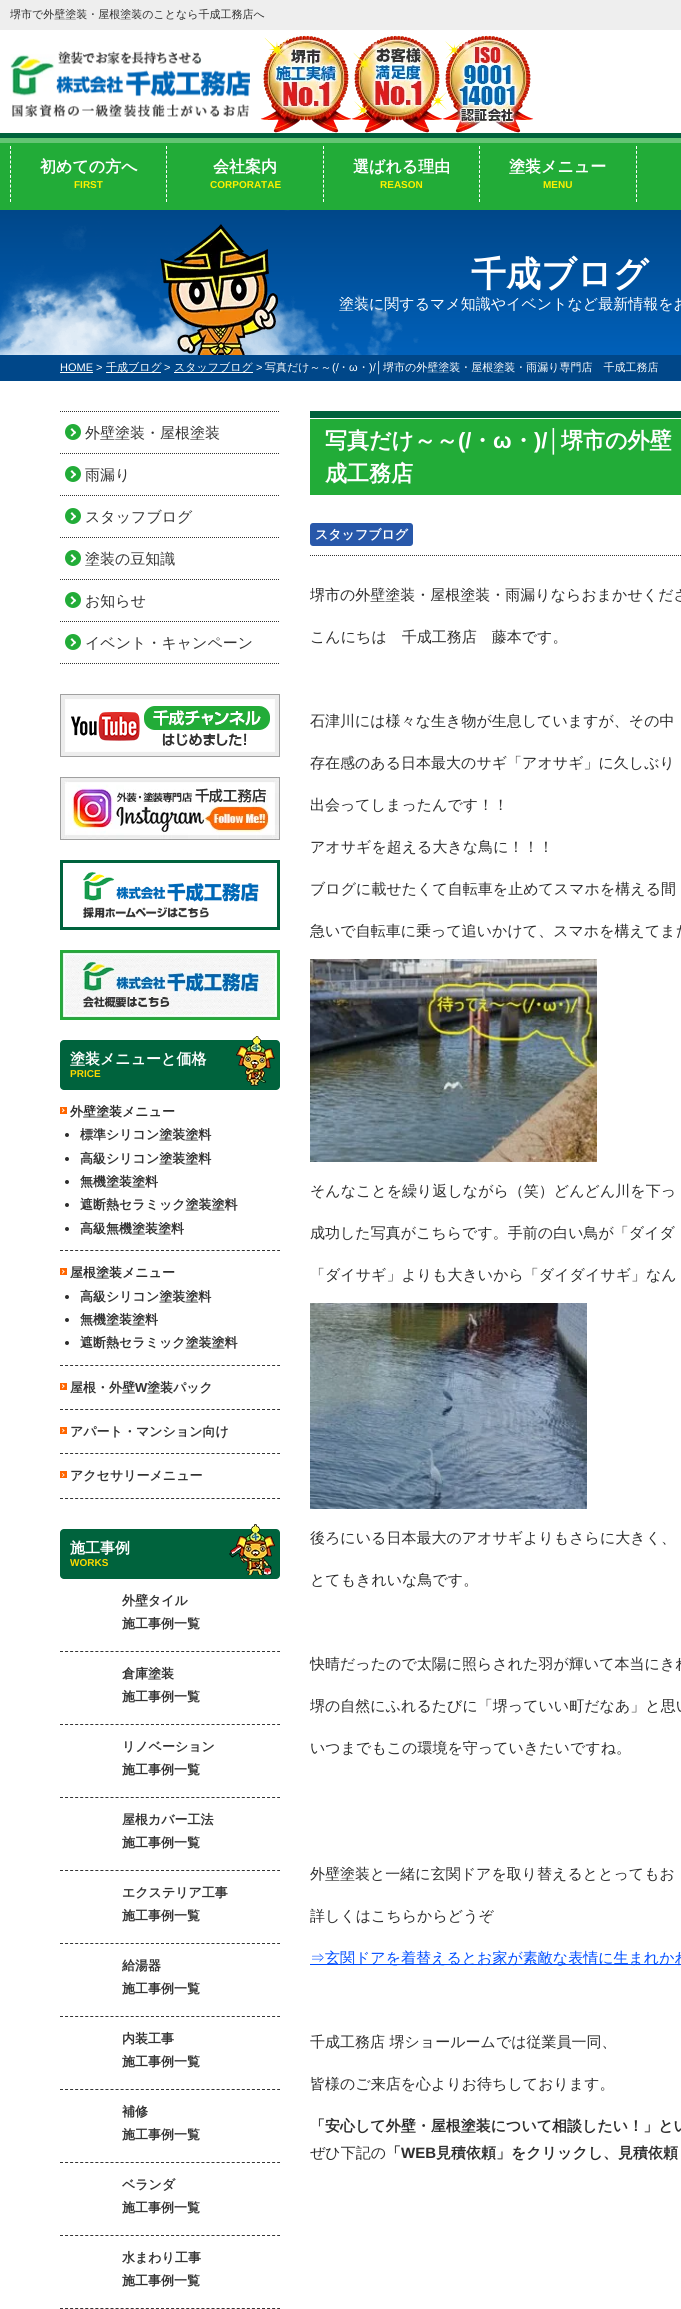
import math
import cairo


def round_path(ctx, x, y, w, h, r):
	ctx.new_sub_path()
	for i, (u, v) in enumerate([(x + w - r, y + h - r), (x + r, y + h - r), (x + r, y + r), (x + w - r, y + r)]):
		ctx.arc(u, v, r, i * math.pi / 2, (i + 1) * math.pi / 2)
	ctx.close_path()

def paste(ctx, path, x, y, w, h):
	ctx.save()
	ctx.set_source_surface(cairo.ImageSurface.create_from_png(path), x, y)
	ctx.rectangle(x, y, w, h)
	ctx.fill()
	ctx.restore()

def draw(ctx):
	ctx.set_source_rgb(1, 1, 1)
	ctx.paint()
	ctx.set_source_rgb(0.933, 0.933, 0.933)
	ctx.rectangle(0, 0, 681, 30)
	ctx.fill()
	ctx.select_font_face('WenQuanYi Zen Hei Medium')
	ctx.set_font_size(11)
	ctx.set_source_rgb(0.176, 0.176, 0.176)
	ctx.move_to(10, 18)
	ctx.show_text('堺市で外壁塗装・屋根塗装のことなら千成工務店へ')
	paste(ctx, 'media/1.png', 10, 51, 240, 66)
	paste(ctx, 'media/2.png', 260, 35, 274, 98)
	ctx.set_source_rgb(0.133, 0.675, 0.22)
	ctx.rectangle(0, 143, 681, 67)
	ctx.fill()
	ctx.set_source_rgb(0.392, 0.773, 0.455)
	ctx.rectangle(0, 138, 681, 5)
	ctx.fill()
	ctx.set_source_rgb(0, 0.388, 0.239)
	ctx.rectangle(0, 133, 681, 5)
	ctx.fill()
	ctx.new_path()
	ctx.move_to(166.5, 146)
	ctx.line_to(166.5, 202)
	ctx.set_source_rgb(1, 1, 1)
	ctx.set_line_width(1)
	ctx.set_dash([3, 1.82])
	ctx.stroke()
	ctx.new_path()
	ctx.move_to(10.5, 146)
	ctx.line_to(10.5, 202)
	ctx.stroke()
	ctx.select_font_face('WenQuanYi Zen Hei', cairo.FONT_SLANT_NORMAL, cairo.FONT_WEIGHT_BOLD)
	ctx.set_font_size(16)
	ctx.move_to(40, 172)
	ctx.show_text('初めての方へ')
	ctx.select_font_face('Liberation Sans', cairo.FONT_SLANT_NORMAL, cairo.FONT_WEIGHT_BOLD)
	ctx.set_font_size(10)
	ctx.set_source_rgb(1, 0.945, 0)
	ctx.move_to(74, 188)
	ctx.show_text('FIRST')
	ctx.new_path()
	ctx.move_to(323.5, 146)
	ctx.line_to(323.5, 202)
	ctx.set_source_rgb(1, 1, 1)
	ctx.stroke()
	ctx.select_font_face('WenQuanYi Zen Hei', cairo.FONT_SLANT_NORMAL, cairo.FONT_WEIGHT_BOLD)
	ctx.set_font_size(16)
	ctx.move_to(213, 172)
	ctx.show_text('会社案内')
	ctx.select_font_face('Liberation Sans', cairo.FONT_SLANT_NORMAL, cairo.FONT_WEIGHT_BOLD)
	ctx.set_font_size(10)
	ctx.set_source_rgb(1, 0.945, 0)
	ctx.move_to(210, 188)
	ctx.show_text('CORPORATAE')
	ctx.new_path()
	ctx.move_to(479.5, 146)
	ctx.line_to(479.5, 202)
	ctx.set_source_rgb(1, 1, 1)
	ctx.stroke()
	ctx.select_font_face('WenQuanYi Zen Hei', cairo.FONT_SLANT_NORMAL, cairo.FONT_WEIGHT_BOLD)
	ctx.set_font_size(16)
	ctx.move_to(353, 172)
	ctx.show_text('選ばれる理由')
	ctx.select_font_face('Liberation Sans', cairo.FONT_SLANT_NORMAL, cairo.FONT_WEIGHT_BOLD)
	ctx.set_font_size(10)
	ctx.set_source_rgb(1, 0.945, 0)
	ctx.move_to(380, 188)
	ctx.show_text('REASON')
	ctx.new_path()
	ctx.move_to(636.5, 146)
	ctx.line_to(636.5, 202)
	ctx.set_source_rgb(1, 1, 1)
	ctx.stroke()
	ctx.select_font_face('WenQuanYi Zen Hei', cairo.FONT_SLANT_NORMAL, cairo.FONT_WEIGHT_BOLD)
	ctx.set_font_size(16)
	ctx.move_to(509, 172)
	ctx.show_text('塗装メニュー')
	ctx.select_font_face('Liberation Sans', cairo.FONT_SLANT_NORMAL, cairo.FONT_WEIGHT_BOLD)
	ctx.set_font_size(10)
	ctx.set_source_rgb(1, 0.945, 0)
	ctx.move_to(543, 188)
	ctx.show_text('MENU')
	gradient = cairo.LinearGradient(560, 355, 560, 210)
	gradient.add_color_stop_rgba(0, 0, 0.376, 0.725, 1)
	gradient.add_color_stop_rgba(1, 0, 0.278, 0.537, 1)
	ctx.set_source(gradient)
	ctx.rectangle(0, 210, 681, 145)
	ctx.fill()
	paste(ctx, 'media/3.png', 0, 210, 419, 145)
	ctx.select_font_face('WenQuanYi Zen Hei', cairo.FONT_SLANT_NORMAL, cairo.FONT_WEIGHT_BOLD)
	ctx.set_font_size(35)
	ctx.set_source_rgb(1, 1, 1)
	ctx.move_to(471, 286)
	ctx.show_text('千成ブログ')
	ctx.select_font_face('WenQuanYi Zen Hei Medium')
	ctx.set_font_size(15)
	ctx.move_to(339, 309)
	ctx.show_text('塗装に関するマメ知識やイベントなど最新情報をお')
	ctx.set_source_rgb(0, 0.278, 0.537)
	ctx.rectangle(0, 355, 681, 26)
	ctx.fill()
	ctx.select_font_face('Liberation Sans')
	ctx.set_font_size(11)
	ctx.set_source_rgb(1, 1, 1)
	ctx.move_to(60, 371)
	ctx.show_text('HOME >')
	ctx.rectangle(60, 372, 33, 1)
	ctx.fill()
	ctx.rectangle(106, 372, 55, 1)
	ctx.fill()
	ctx.select_font_face('WenQuanYi Zen Hei Medium')
	ctx.move_to(106, 371)
	ctx.show_text('千成ブログ')
	ctx.select_font_face('Liberation Sans')
	ctx.move_to(164, 371)
	ctx.show_text('>')
	ctx.rectangle(174, 372, 79, 1)
	ctx.fill()
	ctx.select_font_face('WenQuanYi Zen Hei Medium')
	ctx.move_to(174, 371)
	ctx.show_text('スタッフブログ')
	ctx.select_font_face('Liberation Sans')
	ctx.move_to(256, 371)
	ctx.show_text('>')
	ctx.select_font_face('WenQuanYi Zen Hei Medium')
	ctx.move_to(265, 371)
	ctx.show_text('写真だけ～～')
	ctx.select_font_face('Liberation Sans')
	ctx.move_to(332, 371)
	ctx.show_text('(/')
	ctx.select_font_face('WenQuanYi Zen Hei Medium')
	ctx.move_to(338, 371)
	ctx.show_text('・')
	ctx.select_font_face('Liberation Sans')
	ctx.move_to(349, 371)
	ctx.show_text('ω')
	ctx.select_font_face('WenQuanYi Zen Hei Medium')
	ctx.move_to(358, 371)
	ctx.show_text('・')
	ctx.select_font_face('Liberation Sans')
	ctx.move_to(369, 371)
	ctx.show_text(')/│')
	ctx.select_font_face('WenQuanYi Zen Hei Medium')
	ctx.move_to(383, 371)
	ctx.show_text('堺市の外壁塗装・屋根塗装・雨漏り専門店　千成工務店')
	ctx.new_path()
	ctx.move_to(60, 411.5)
	ctx.line_to(280, 411.5)
	ctx.set_source_rgb(0.2, 0.2, 0.2)
	ctx.set_dash([1, 1])
	ctx.stroke()
	ctx.new_path()
	ctx.move_to(60, 453.5)
	ctx.line_to(280, 453.5)
	ctx.stroke()
	ctx.set_source_rgb(0.133, 0.675, 0.22)
	ctx.arc(73, 432, 8, 0, 2 * math.pi)
	ctx.fill()
	ctx.set_font_size(15)
	ctx.set_source_rgb(0.2, 0.2, 0.2)
	ctx.move_to(85, 438)
	ctx.show_text('外壁塗装・屋根塗装')
	ctx.set_source_rgb(1, 1, 1)
	ctx.new_path()
	ctx.move_to(72, 428)
	ctx.line_to(76, 432.5)
	ctx.line_to(75, 434)
	ctx.line_to(70.5, 429.5)
	ctx.close_path()
	ctx.fill()
	ctx.new_path()
	ctx.move_to(75, 431)
	ctx.line_to(76, 432.5)
	ctx.line_to(72, 436.5)
	ctx.line_to(70.5, 435.5)
	ctx.close_path()
	ctx.fill()
	ctx.new_path()
	ctx.move_to(60, 495.5)
	ctx.line_to(280, 495.5)
	ctx.set_source_rgb(0.2, 0.2, 0.2)
	ctx.stroke()
	ctx.set_source_rgb(0.133, 0.675, 0.22)
	ctx.arc(73, 474, 8, 0, 2 * math.pi)
	ctx.fill()
	ctx.set_source_rgb(0.2, 0.2, 0.2)
	ctx.move_to(85, 480)
	ctx.show_text('雨漏り')
	ctx.set_source_rgb(1, 1, 1)
	ctx.new_path()
	ctx.move_to(72, 470)
	ctx.line_to(76, 474.5)
	ctx.line_to(75, 476)
	ctx.line_to(70.5, 471.5)
	ctx.close_path()
	ctx.fill()
	ctx.new_path()
	ctx.move_to(75, 473)
	ctx.line_to(76, 474.5)
	ctx.line_to(72, 478.5)
	ctx.line_to(70.5, 477.5)
	ctx.close_path()
	ctx.fill()
	ctx.new_path()
	ctx.move_to(60, 537.5)
	ctx.line_to(280, 537.5)
	ctx.set_source_rgb(0.2, 0.2, 0.2)
	ctx.stroke()
	ctx.set_source_rgb(0.133, 0.675, 0.22)
	ctx.arc(73, 516, 8, 0, 2 * math.pi)
	ctx.fill()
	ctx.set_source_rgb(0.2, 0.2, 0.2)
	ctx.move_to(85, 522)
	ctx.show_text('スタッフブログ')
	ctx.set_source_rgb(1, 1, 1)
	ctx.new_path()
	ctx.move_to(72, 512)
	ctx.line_to(76, 516.5)
	ctx.line_to(75, 518)
	ctx.line_to(70.5, 513.5)
	ctx.close_path()
	ctx.fill()
	ctx.new_path()
	ctx.move_to(75, 515)
	ctx.line_to(76, 516.5)
	ctx.line_to(72, 520.5)
	ctx.line_to(70.5, 519.5)
	ctx.close_path()
	ctx.fill()
	ctx.new_path()
	ctx.move_to(60, 579.5)
	ctx.line_to(280, 579.5)
	ctx.set_source_rgb(0.2, 0.2, 0.2)
	ctx.stroke()
	ctx.set_source_rgb(0.133, 0.675, 0.22)
	ctx.arc(73, 558, 8, 0, 2 * math.pi)
	ctx.fill()
	ctx.set_source_rgb(0.2, 0.2, 0.2)
	ctx.move_to(85, 564)
	ctx.show_text('塗装の豆知識')
	ctx.set_source_rgb(1, 1, 1)
	ctx.new_path()
	ctx.move_to(72, 554)
	ctx.line_to(76, 558.5)
	ctx.line_to(75, 560)
	ctx.line_to(70.5, 555.5)
	ctx.close_path()
	ctx.fill()
	ctx.new_path()
	ctx.move_to(75, 557)
	ctx.line_to(76, 558.5)
	ctx.line_to(72, 562.5)
	ctx.line_to(70.5, 561.5)
	ctx.close_path()
	ctx.fill()
	ctx.new_path()
	ctx.move_to(60, 621.5)
	ctx.line_to(280, 621.5)
	ctx.set_source_rgb(0.2, 0.2, 0.2)
	ctx.stroke()
	ctx.set_source_rgb(0.133, 0.675, 0.22)
	ctx.arc(73, 600, 8, 0, 2 * math.pi)
	ctx.fill()
	ctx.set_source_rgb(0.2, 0.2, 0.2)
	ctx.move_to(85, 606)
	ctx.show_text('お知らせ')
	ctx.set_source_rgb(1, 1, 1)
	ctx.new_path()
	ctx.move_to(72, 596)
	ctx.line_to(76, 600.5)
	ctx.line_to(75, 602)
	ctx.line_to(70.5, 597.5)
	ctx.close_path()
	ctx.fill()
	ctx.new_path()
	ctx.move_to(75, 599)
	ctx.line_to(76, 600.5)
	ctx.line_to(72, 604.5)
	ctx.line_to(70.5, 603.5)
	ctx.close_path()
	ctx.fill()
	ctx.new_path()
	ctx.move_to(60, 663.5)
	ctx.line_to(280, 663.5)
	ctx.set_source_rgb(0.2, 0.2, 0.2)
	ctx.stroke()
	ctx.set_source_rgb(0.133, 0.675, 0.22)
	ctx.arc(73, 642, 8, 0, 2 * math.pi)
	ctx.fill()
	ctx.set_source_rgb(0.2, 0.2, 0.2)
	ctx.move_to(85, 648)
	ctx.show_text('イベント・キャンペーン')
	ctx.set_source_rgb(1, 1, 1)
	ctx.new_path()
	ctx.move_to(72, 638)
	ctx.line_to(76, 642.5)
	ctx.line_to(75, 644)
	ctx.line_to(70.5, 639.5)
	ctx.close_path()
	ctx.fill()
	ctx.new_path()
	ctx.move_to(75, 641)
	ctx.line_to(76, 642.5)
	ctx.line_to(72, 646.5)
	ctx.line_to(70.5, 645.5)
	ctx.close_path()
	ctx.fill()
	paste(ctx, 'media/4.png', 60, 694, 220, 63)
	paste(ctx, 'media/5.png', 60, 777, 220, 63)
	paste(ctx, 'media/6.png', 60, 860, 220, 70)
	paste(ctx, 'media/7.png', 60, 950, 220, 70)
	ctx.set_source_rgb(0, 0.388, 0.239)
	round_path(ctx, 60, 1040, 220, 50, 4)
	ctx.fill()
	ctx.select_font_face('WenQuanYi Zen Hei', cairo.FONT_SLANT_NORMAL, cairo.FONT_WEIGHT_BOLD)
	ctx.set_source_rgb(1, 1, 1)
	ctx.move_to(70, 1064)
	ctx.show_text('塗装メニューと価格')
	paste(ctx, 'media/8.png', 236, 1036, 39, 50)
	ctx.select_font_face('Liberation Sans', cairo.FONT_SLANT_NORMAL, cairo.FONT_WEIGHT_BOLD)
	ctx.set_font_size(10)
	ctx.set_source_rgb(0.996, 0.851, 0)
	ctx.move_to(70, 1077)
	ctx.show_text('PRICE')
	ctx.new_path()
	ctx.move_to(60, 1250.5)
	ctx.line_to(280, 1250.5)
	ctx.set_source_rgb(0.2, 0.2, 0.2)
	ctx.set_dash([3, 2.05])
	ctx.stroke()
	ctx.set_source_rgb(1, 0.4, 0)
	ctx.rectangle(60, 1107, 7, 7)
	ctx.fill()
	ctx.select_font_face('WenQuanYi Zen Hei', cairo.FONT_SLANT_NORMAL, cairo.FONT_WEIGHT_BOLD)
	ctx.set_font_size(13)
	ctx.set_source_rgb(0.176, 0.176, 0.176)
	ctx.move_to(70, 1116)
	ctx.show_text('外壁塗装メニュー')
	ctx.set_source_rgb(1, 1, 1)
	ctx.new_path()
	ctx.move_to(62.5, 1108)
	ctx.line_to(64.5, 1110.5)
	ctx.line_to(64, 1111)
	ctx.line_to(62, 1109)
	ctx.close_path()
	ctx.fill()
	ctx.new_path()
	ctx.move_to(64, 1109.5)
	ctx.line_to(64.5, 1110.5)
	ctx.line_to(62.5, 1112.5)
	ctx.line_to(62, 1111.5)
	ctx.close_path()
	ctx.fill()
	ctx.set_source_rgb(0.176, 0.176, 0.176)
	ctx.arc(67, 1135, 2, 0, 2 * math.pi)
	ctx.fill()
	ctx.set_source_rgb(0.2, 0.2, 0.2)
	ctx.move_to(80, 1139)
	ctx.show_text('標準シリコン塗装塗料')
	ctx.set_source_rgb(0.176, 0.176, 0.176)
	ctx.new_path()
	ctx.arc(67, 1159, 2, 0, 2 * math.pi)
	ctx.fill()
	ctx.set_source_rgb(0.2, 0.2, 0.2)
	ctx.move_to(80, 1163)
	ctx.show_text('高級シリコン塗装塗料')
	ctx.set_source_rgb(0.176, 0.176, 0.176)
	ctx.new_path()
	ctx.arc(67, 1182, 2, 0, 2 * math.pi)
	ctx.fill()
	ctx.set_source_rgb(0.2, 0.2, 0.2)
	ctx.move_to(80, 1186)
	ctx.show_text('無機塗装塗料')
	ctx.set_source_rgb(0.176, 0.176, 0.176)
	ctx.new_path()
	ctx.arc(67, 1205, 2, 0, 2 * math.pi)
	ctx.fill()
	ctx.set_source_rgb(0.2, 0.2, 0.2)
	ctx.move_to(80, 1209)
	ctx.show_text('遮断熱セラミック塗装塗料')
	ctx.set_source_rgb(0.176, 0.176, 0.176)
	ctx.new_path()
	ctx.arc(67, 1229, 2, 0, 2 * math.pi)
	ctx.fill()
	ctx.set_source_rgb(0.2, 0.2, 0.2)
	ctx.move_to(80, 1233)
	ctx.show_text('高級無機塗装塗料')
	ctx.new_path()
	ctx.move_to(60, 1365.5)
	ctx.line_to(280, 1365.5)
	ctx.stroke()
	ctx.set_source_rgb(1, 0.4, 0)
	ctx.rectangle(60, 1268, 7, 7)
	ctx.fill()
	ctx.set_source_rgb(0.176, 0.176, 0.176)
	ctx.move_to(70, 1277)
	ctx.show_text('屋根塗装メニュー')
	ctx.set_source_rgb(1, 1, 1)
	ctx.new_path()
	ctx.move_to(62.5, 1269.5)
	ctx.line_to(64.5, 1271.5)
	ctx.line_to(64, 1272.5)
	ctx.line_to(62, 1270)
	ctx.close_path()
	ctx.fill()
	ctx.new_path()
	ctx.move_to(64, 1271)
	ctx.line_to(64.5, 1271.5)
	ctx.line_to(62.5, 1274)
	ctx.line_to(62, 1273)
	ctx.close_path()
	ctx.fill()
	ctx.set_source_rgb(0.176, 0.176, 0.176)
	ctx.arc(67, 1297, 2, 0, 2 * math.pi)
	ctx.fill()
	ctx.set_source_rgb(0.2, 0.2, 0.2)
	ctx.move_to(80, 1301)
	ctx.show_text('高級シリコン塗装塗料')
	ctx.set_source_rgb(0.176, 0.176, 0.176)
	ctx.new_path()
	ctx.arc(67, 1320, 2, 0, 2 * math.pi)
	ctx.fill()
	ctx.set_source_rgb(0.2, 0.2, 0.2)
	ctx.move_to(80, 1324)
	ctx.show_text('無機塗装塗料')
	ctx.set_source_rgb(0.176, 0.176, 0.176)
	ctx.new_path()
	ctx.arc(67, 1343, 2, 0, 2 * math.pi)
	ctx.fill()
	ctx.set_source_rgb(0.2, 0.2, 0.2)
	ctx.move_to(80, 1347)
	ctx.show_text('遮断熱セラミック塗装塗料')
	ctx.new_path()
	ctx.move_to(60, 1409.5)
	ctx.line_to(280, 1409.5)
	ctx.stroke()
	ctx.set_source_rgb(1, 0.4, 0)
	ctx.rectangle(60, 1383, 7, 7)
	ctx.fill()
	ctx.set_source_rgb(0.2, 0.2, 0.2)
	ctx.move_to(70, 1392)
	ctx.show_text('屋根・外壁')
	ctx.select_font_face('Liberation Sans', cairo.FONT_SLANT_NORMAL, cairo.FONT_WEIGHT_BOLD)
	ctx.move_to(135, 1392)
	ctx.show_text('W')
	ctx.select_font_face('WenQuanYi Zen Hei', cairo.FONT_SLANT_NORMAL, cairo.FONT_WEIGHT_BOLD)
	ctx.move_to(147, 1392)
	ctx.show_text('塗装パック')
	ctx.set_source_rgb(1, 1, 1)
	ctx.new_path()
	ctx.move_to(62.5, 1384)
	ctx.line_to(64.5, 1386)
	ctx.line_to(64, 1387)
	ctx.line_to(62, 1385)
	ctx.close_path()
	ctx.fill()
	ctx.new_path()
	ctx.move_to(64, 1385.5)
	ctx.line_to(64.5, 1386)
	ctx.line_to(62.5, 1388.5)
	ctx.line_to(62, 1387.5)
	ctx.close_path()
	ctx.fill()
	ctx.new_path()
	ctx.move_to(60, 1453.5)
	ctx.line_to(280, 1453.5)
	ctx.set_source_rgb(0.2, 0.2, 0.2)
	ctx.stroke()
	ctx.set_source_rgb(1, 0.4, 0)
	ctx.rectangle(60, 1427, 7, 7)
	ctx.fill()
	ctx.set_source_rgb(0.2, 0.2, 0.2)
	ctx.move_to(70, 1436)
	ctx.show_text('アパート・マンション向け')
	ctx.set_source_rgb(1, 1, 1)
	ctx.new_path()
	ctx.move_to(62.5, 1428.5)
	ctx.line_to(64.5, 1430.5)
	ctx.line_to(64, 1431.5)
	ctx.line_to(62, 1429)
	ctx.close_path()
	ctx.fill()
	ctx.new_path()
	ctx.move_to(64, 1430)
	ctx.line_to(64.5, 1430.5)
	ctx.line_to(62.5, 1432.5)
	ctx.line_to(62, 1432)
	ctx.close_path()
	ctx.fill()
	ctx.new_path()
	ctx.move_to(60, 1498.5)
	ctx.line_to(280, 1498.5)
	ctx.set_source_rgb(0.2, 0.2, 0.2)
	ctx.stroke()
	ctx.set_source_rgb(1, 0.4, 0)
	ctx.rectangle(60, 1471, 7, 7)
	ctx.fill()
	ctx.set_source_rgb(0.2, 0.2, 0.2)
	ctx.move_to(70, 1480)
	ctx.show_text('アクセサリーメニュー')
	ctx.set_source_rgb(1, 1, 1)
	ctx.new_path()
	ctx.move_to(62.5, 1473)
	ctx.line_to(64.5, 1475)
	ctx.line_to(64, 1475.5)
	ctx.line_to(62, 1473.5)
	ctx.close_path()
	ctx.fill()
	ctx.new_path()
	ctx.move_to(64, 1474.5)
	ctx.line_to(64.5, 1475)
	ctx.line_to(62.5, 1477)
	ctx.line_to(62, 1476.5)
	ctx.close_path()
	ctx.fill()
	ctx.set_source_rgb(0, 0.388, 0.239)
	round_path(ctx, 60, 1529, 220, 50, 4)
	ctx.fill()
	ctx.set_font_size(15)
	ctx.set_source_rgb(1, 1, 1)
	ctx.move_to(70, 1553)
	ctx.show_text('施工事例')
	paste(ctx, 'media/9.png', 229, 1524, 46, 51)
	ctx.select_font_face('Liberation Sans', cairo.FONT_SLANT_NORMAL, cairo.FONT_WEIGHT_BOLD)
	ctx.set_font_size(10)
	ctx.set_source_rgb(0.996, 0.851, 0)
	ctx.move_to(70, 1566)
	ctx.show_text('WORKS')
	ctx.new_path()
	ctx.move_to(60, 1651.5)
	ctx.line_to(280, 1651.5)
	ctx.set_source_rgb(0.2, 0.2, 0.2)
	ctx.stroke()
	ctx.select_font_face('WenQuanYi Zen Hei', cairo.FONT_SLANT_NORMAL, cairo.FONT_WEIGHT_BOLD)
	ctx.set_font_size(13)
	ctx.move_to(122, 1605)
	ctx.show_text('外壁タイル')
	ctx.move_to(122, 1628)
	ctx.show_text('施工事例一覧')
	ctx.new_path()
	ctx.move_to(60, 1724.5)
	ctx.line_to(280, 1724.5)
	ctx.stroke()
	ctx.move_to(122, 1678)
	ctx.show_text('倉庫塗装')
	ctx.move_to(122, 1701)
	ctx.show_text('施工事例一覧')
	ctx.new_path()
	ctx.move_to(60, 1797.5)
	ctx.line_to(280, 1797.5)
	ctx.stroke()
	ctx.move_to(122, 1751)
	ctx.show_text('リノベーション')
	ctx.move_to(122, 1774)
	ctx.show_text('施工事例一覧')
	ctx.new_path()
	ctx.move_to(60, 1870.5)
	ctx.line_to(280, 1870.5)
	ctx.stroke()
	ctx.move_to(122, 1824)
	ctx.show_text('屋根カバー工法')
	ctx.move_to(122, 1847)
	ctx.show_text('施工事例一覧')
	ctx.new_path()
	ctx.move_to(60, 1943.5)
	ctx.line_to(280, 1943.5)
	ctx.stroke()
	ctx.move_to(122, 1897)
	ctx.show_text('エクステリア工事')
	ctx.move_to(122, 1920)
	ctx.show_text('施工事例一覧')
	ctx.new_path()
	ctx.move_to(60, 2016.5)
	ctx.line_to(280, 2016.5)
	ctx.stroke()
	ctx.move_to(122, 1970)
	ctx.show_text('給湯器')
	ctx.move_to(122, 1993)
	ctx.show_text('施工事例一覧')
	ctx.new_path()
	ctx.move_to(60, 2089.5)
	ctx.line_to(280, 2089.5)
	ctx.stroke()
	ctx.move_to(122, 2043)
	ctx.show_text('内装工事')
	ctx.move_to(122, 2066)
	ctx.show_text('施工事例一覧')
	ctx.new_path()
	ctx.move_to(60, 2162.5)
	ctx.line_to(280, 2162.5)
	ctx.stroke()
	ctx.move_to(122, 2116)
	ctx.show_text('補修')
	ctx.move_to(122, 2139)
	ctx.show_text('施工事例一覧')
	ctx.new_path()
	ctx.move_to(60, 2235.5)
	ctx.line_to(280, 2235.5)
	ctx.stroke()
	ctx.move_to(122, 2189)
	ctx.show_text('ベランダ')
	ctx.move_to(122, 2212)
	ctx.show_text('施工事例一覧')
	ctx.new_path()
	ctx.move_to(60, 2308.5)
	ctx.line_to(280, 2308.5)
	ctx.stroke()
	ctx.move_to(122, 2262)
	ctx.show_text('水まわり工事')
	ctx.move_to(122, 2285)
	ctx.show_text('施工事例一覧')
	ctx.set_source_rgb(0, 0.388, 0.239)
	ctx.rectangle(310, 411, 371, 7)
	ctx.fill()
	ctx.set_source_rgb(0.133, 0.675, 0.22)
	ctx.rectangle(310, 419, 371, 76)
	ctx.fill()
	ctx.set_font_size(22)
	ctx.set_source_rgb(1, 1, 1)
	ctx.move_to(325, 448)
	ctx.show_text('写真だけ～～')
	ctx.select_font_face('Liberation Sans', cairo.FONT_SLANT_NORMAL, cairo.FONT_WEIGHT_BOLD)
	ctx.move_to(458, 448)
	ctx.show_text('(/')
	ctx.select_font_face('WenQuanYi Zen Hei', cairo.FONT_SLANT_NORMAL, cairo.FONT_WEIGHT_BOLD)
	ctx.move_to(471, 448)
	ctx.show_text('・')
	ctx.select_font_face('Liberation Sans', cairo.FONT_SLANT_NORMAL, cairo.FONT_WEIGHT_BOLD)
	ctx.move_to(493, 448)
	ctx.show_text('ω')
	ctx.select_font_face('WenQuanYi Zen Hei', cairo.FONT_SLANT_NORMAL, cairo.FONT_WEIGHT_BOLD)
	ctx.move_to(512, 448)
	ctx.show_text('・')
	ctx.select_font_face('Liberation Sans', cairo.FONT_SLANT_NORMAL, cairo.FONT_WEIGHT_BOLD)
	ctx.move_to(534, 448)
	ctx.show_text(')/│')
	ctx.select_font_face('WenQuanYi Zen Hei', cairo.FONT_SLANT_NORMAL, cairo.FONT_WEIGHT_BOLD)
	ctx.move_to(561, 448)
	ctx.show_text('堺市の外壁')
	ctx.move_to(325, 481)
	ctx.show_text('成工務店')
	ctx.new_path()
	ctx.move_to(310, 555.5)
	ctx.line_to(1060, 555.5)
	ctx.set_source_rgb(0.2, 0.2, 0.2)
	ctx.set_dash([1, 1])
	ctx.stroke()
	ctx.set_source_rgb(0.157, 0.345, 0.667)
	round_path(ctx, 310, 523, 103, 23, 3)
	ctx.fill()
	ctx.set_font_size(13)
	ctx.set_source_rgb(1, 1, 1)
	ctx.move_to(315, 539)
	ctx.show_text('スタッフブログ')
	ctx.select_font_face('WenQuanYi Zen Hei Medium')
	ctx.set_font_size(15)
	ctx.set_source_rgb(0.176, 0.176, 0.176)
	for x, y, s in [
		(310, 600, '堺市の外壁塗装・屋根塗装・雨漏りならおまかせくださ'),
		(310, 642, 'こんにちは　千成工務店　藤本です。'),
		(310, 726, '石津川には様々な生き物が生息していますが、その中'),
		(310, 768, '存在感のある日本最大のサギ「アオサギ」に久しぶり'),
		(310, 810, '出会ってしまったんです！！'),
		(310, 852, 'アオサギを超える大きな鳥に！！！'),
		(310, 894, 'ブログに載せたくて自転車を止めてスマホを構える間'),
		(310, 936, '急いで自転車に乗って追いかけて、スマホを構えてまた'),
	]:
		ctx.move_to(x, y)
		ctx.show_text(s)
	paste(ctx, 'media/10.png', 310, 959, 287, 203)
	for x, y, s in [
		(310, 1196, 'そんなことを繰り返しながら（笑）どんどん川を下っ'),
		(310, 1238, '成功した写真がこちらです。手前の白い鳥が「ダイダ'),
		(310, 1280, '「ダイサギ」よりも大きいから「ダイダイサギ」なん'),
	]:
		ctx.move_to(x, y)
		ctx.show_text(s)
	paste(ctx, 'media/11.png', 310, 1303, 277, 206)
	for x, y, s in [
		(310, 1543, '後ろにいる日本最大のアオサギよりもさらに大きく、'),
		(310, 1585, 'とてもきれいな鳥です。'),
		(310, 1669, '快晴だったので太陽に照らされた羽が輝いて本当にきれ'),
		(310, 1711, '堺の自然にふれるたびに「堺っていい町だなあ」と思い'),
		(310, 1753, 'いつまでもこの環境を守っていきたいですね。'),
		(310, 1879, '外壁塗装と一緒に玄関ドアを取り替えるととってもお'),
		(310, 1921, '詳しくはこちらからどうぞ'),
	]:
		ctx.move_to(x, y)
		ctx.show_text(s)
	ctx.set_source_rgb(0, 0.302, 1)
	ctx.rectangle(310, 1964, 371, 1)
	ctx.fill()
	ctx.move_to(310, 1963)
	ctx.show_text('⇒玄関ドアを着替えるとお家が素敵な表情に生まれかわ')
	ctx.set_source_rgb(0.176, 0.176, 0.176)
	ctx.move_to(310, 2047)
	ctx.show_text('千成工務店 堺ショールームでは従業員一同、')
	ctx.move_to(310, 2089)
	ctx.show_text('皆様のご来店を心よりお待ちしております。')
	ctx.select_font_face('WenQuanYi Zen Hei', cairo.FONT_SLANT_NORMAL, cairo.FONT_WEIGHT_BOLD)
	ctx.move_to(310, 2131)
	ctx.show_text('「安心して外壁・屋根塗装について相談したい！」とい')
	ctx.select_font_face('WenQuanYi Zen Hei Medium')
	ctx.move_to(310, 2158)
	ctx.show_text('ぜひ下記の')
	ctx.select_font_face('WenQuanYi Zen Hei', cairo.FONT_SLANT_NORMAL, cairo.FONT_WEIGHT_BOLD)
	ctx.move_to(386, 2158)
	ctx.show_text('「')
	ctx.select_font_face('Liberation Sans', cairo.FONT_SLANT_NORMAL, cairo.FONT_WEIGHT_BOLD)
	ctx.move_to(401, 2158)
	ctx.show_text('WEB')
	ctx.select_font_face('WenQuanYi Zen Hei', cairo.FONT_SLANT_NORMAL, cairo.FONT_WEIGHT_BOLD)
	ctx.move_to(436, 2158)
	ctx.show_text('見積依頼」をクリックし、見積依頼')


surface = cairo.ImageSurface(cairo.FORMAT_RGB24, 681, 2309)
ctx = cairo.Context(surface)
options = cairo.FontOptions()
options.set_hint_metrics(cairo.HINT_METRICS_OFF)
options.set_hint_style(cairo.HINT_STYLE_NONE)
ctx.set_font_options(options)
ctx.set_miter_limit(4)
draw(ctx)
surface.write_to_png('image.png')
